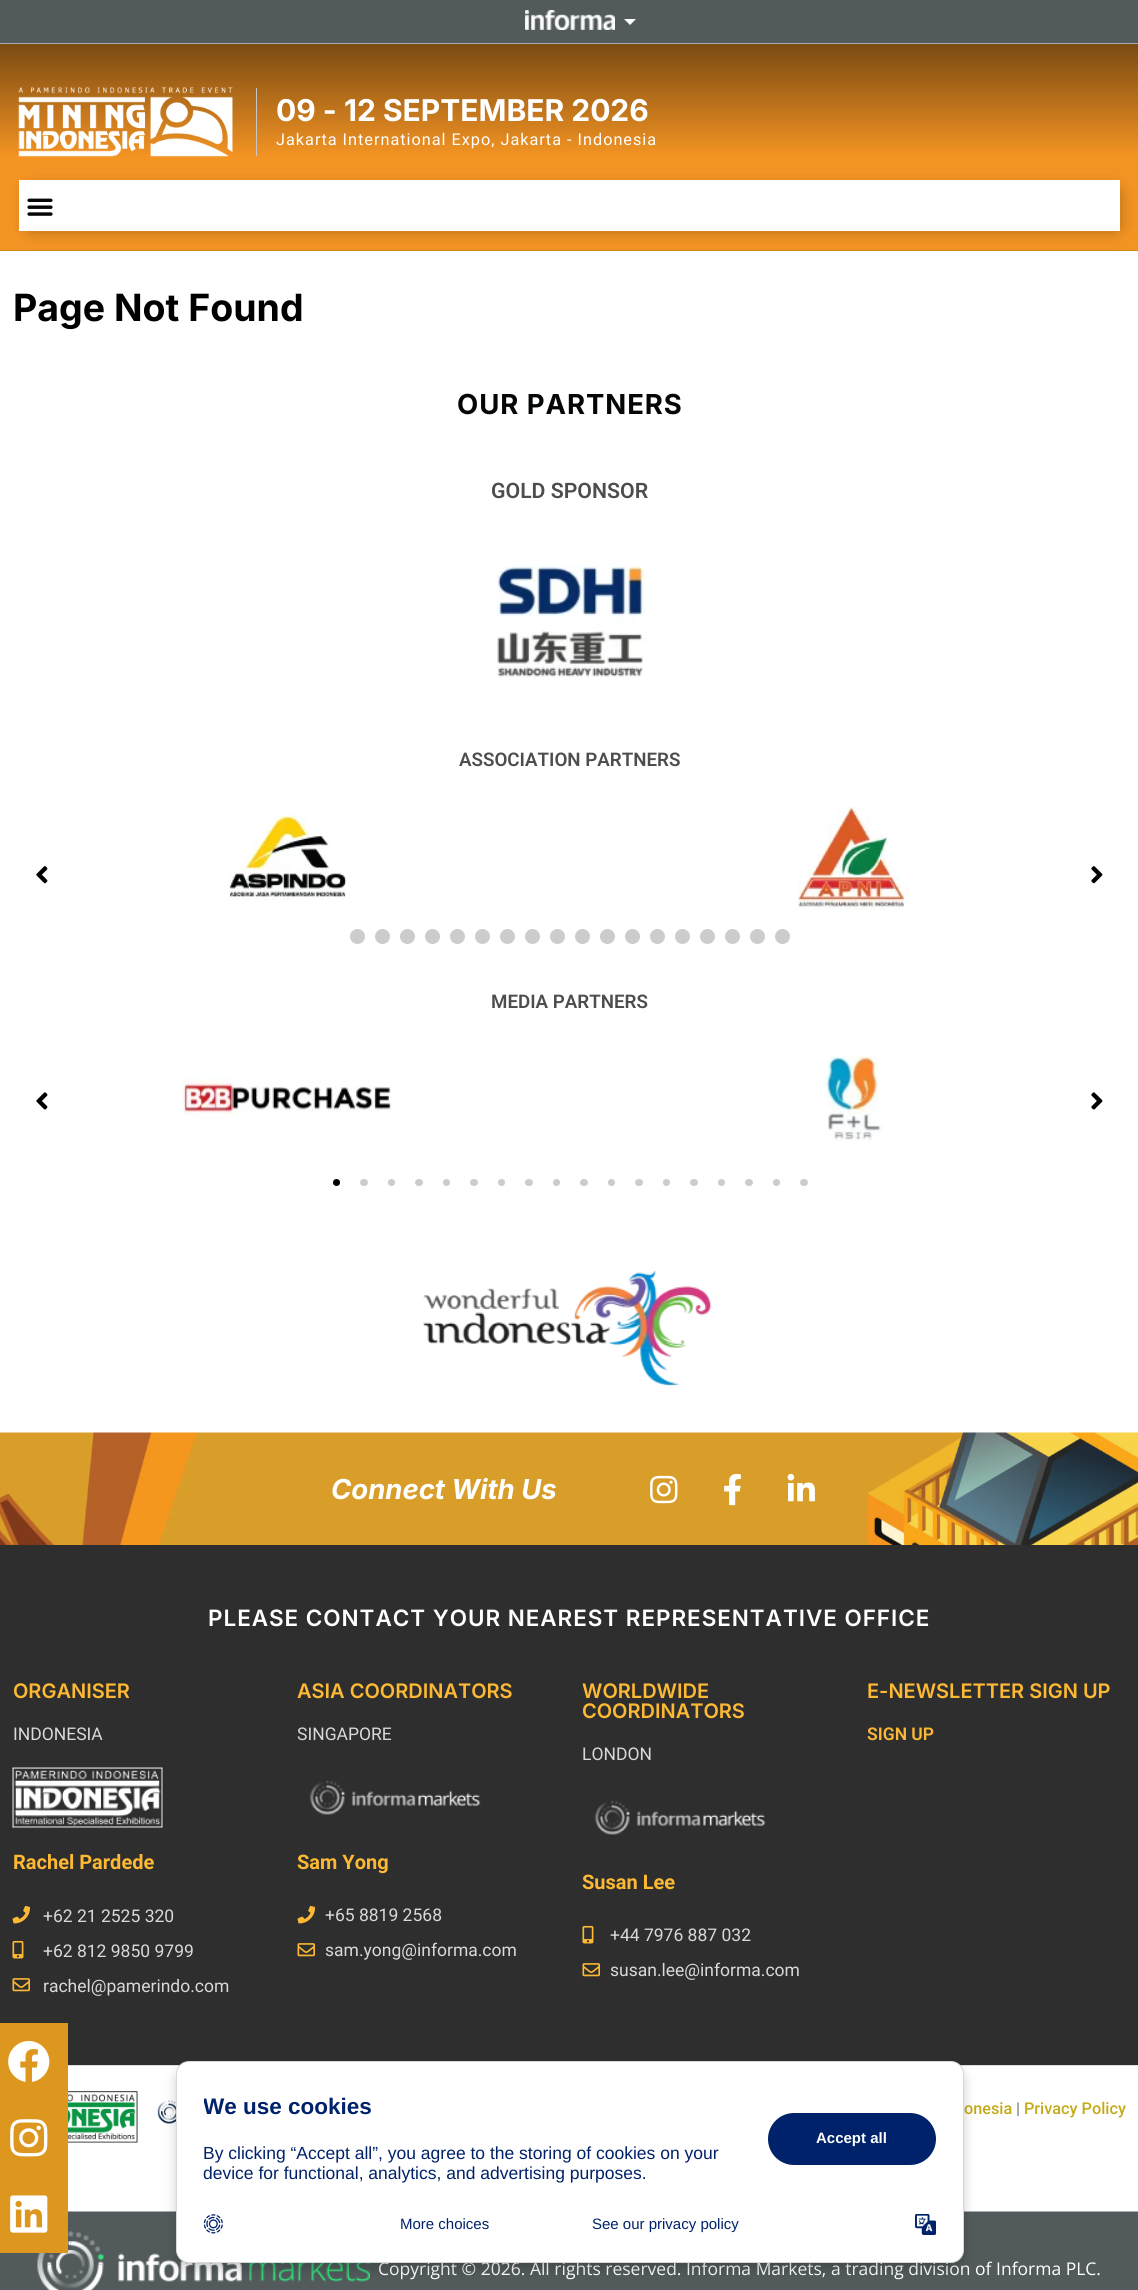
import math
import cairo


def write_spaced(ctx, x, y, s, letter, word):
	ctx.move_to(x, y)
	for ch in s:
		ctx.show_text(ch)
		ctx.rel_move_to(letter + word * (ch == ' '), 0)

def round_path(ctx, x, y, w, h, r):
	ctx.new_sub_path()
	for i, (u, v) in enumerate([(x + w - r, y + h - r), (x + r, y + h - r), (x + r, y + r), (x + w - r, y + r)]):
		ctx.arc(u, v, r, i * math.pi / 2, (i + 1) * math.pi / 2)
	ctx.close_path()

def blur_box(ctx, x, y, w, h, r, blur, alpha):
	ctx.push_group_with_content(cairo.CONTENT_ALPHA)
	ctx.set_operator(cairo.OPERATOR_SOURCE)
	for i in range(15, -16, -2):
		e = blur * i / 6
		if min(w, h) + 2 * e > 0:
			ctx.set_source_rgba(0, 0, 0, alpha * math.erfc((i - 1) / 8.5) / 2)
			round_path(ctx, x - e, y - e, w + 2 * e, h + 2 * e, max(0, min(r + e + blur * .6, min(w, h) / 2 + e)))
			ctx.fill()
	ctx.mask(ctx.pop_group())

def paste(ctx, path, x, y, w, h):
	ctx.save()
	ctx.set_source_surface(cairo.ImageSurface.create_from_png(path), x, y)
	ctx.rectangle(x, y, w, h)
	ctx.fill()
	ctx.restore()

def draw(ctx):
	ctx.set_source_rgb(1, 1, 1)
	ctx.paint()
	ctx.set_source_rgb(0.322, 0.353, 0.361)
	ctx.rectangle(0, 0, 1138, 43)
	ctx.fill()
	ctx.set_source_rgb(0.647, 0.675, 0.686)
	ctx.rectangle(0, 43, 1138, 1)
	ctx.fill()
	paste(ctx, 'media/1.png', 525, 10, 90, 20)
	ctx.set_source_rgb(1, 1, 1)
	ctx.new_path()
	ctx.move_to(624, 19)
	ctx.line_to(636, 19)
	ctx.line_to(630, 25)
	ctx.close_path()
	ctx.fill()
	gradient = cairo.LinearGradient(569, 44, 569, 250)
	gradient.add_color_stop_rgba(0, 0.478, 0.29, 0.071, 1)
	gradient.add_color_stop_rgba(0.55, 0.957, 0.58, 0.137, 1)
	ctx.set_source(gradient)
	ctx.rectangle(0, 44, 1138, 206)
	ctx.fill()
	ctx.set_source_rgb(0.78, 0.78, 0.78)
	ctx.rectangle(256, 88, 1, 68)
	ctx.fill()
	paste(ctx, 'media/2.png', 18, 87, 215, 70)
	ctx.select_font_face('Inter', cairo.FONT_SLANT_NORMAL, cairo.FONT_WEIGHT_BOLD)
	ctx.set_font_size(30)
	ctx.set_source_rgb(1, 1, 1)
	ctx.move_to(276, 121)
	ctx.show_text('09 - 12 SEPTEMBER 2026')
	ctx.select_font_face('Roboto')
	ctx.set_font_size(16.25)
	write_spaced(ctx, 276, 145, 'Jakarta International Expo, Jakarta - Indonesia', 1, 0)
	ctx.set_source_rgb(0, 0, 0)
	blur_box(ctx, 31, 193, 1084, 33, 0, 10, 0.49)
	ctx.set_source_rgb(1, 1, 1)
	ctx.rectangle(19, 180, 1101, 51)
	ctx.fill()
	paste(ctx, 'media/3.png', 27, 198, 26, 18)
	ctx.set_source_rgb(0.773, 0.541, 0.082)
	ctx.rectangle(0, 250, 1138, 1)
	ctx.fill()
	ctx.select_font_face('Inter', cairo.FONT_SLANT_NORMAL, cairo.FONT_WEIGHT_BOLD)
	ctx.set_font_size(37.5)
	ctx.set_source_rgb(0, 0, 0)
	ctx.move_to(13, 321)
	ctx.show_text('Page Not Found')
	ctx.set_font_size(27.5)
	ctx.set_source_rgb(0.02, 0.027, 0.024)
	write_spaced(ctx, 457, 414, 'OUR PARTNERS', 0.95, 0)
	ctx.select_font_face('Roboto SemiBold')
	ctx.set_font_size(21.25)
	ctx.set_source_rgb(0.302, 0.302, 0.302)
	ctx.move_to(491, 498)
	ctx.show_text('GOLD SPONSOR')
	paste(ctx, 'media/4.png', 496, 565, 151, 112)
	ctx.set_font_size(18.75)
	ctx.move_to(459, 766)
	ctx.show_text('ASSOCIATION PARTNERS')
	paste(ctx, 'media/5.png', 36, 866, 12, 18)
	paste(ctx, 'media/6.png', 229, 815, 118, 85)
	paste(ctx, 'media/7.png', 798, 806, 111, 104)
	paste(ctx, 'media/8.png', 1091, 866, 12, 18)
	ctx.set_source_rgb(0.8, 0.8, 0.8)
	ctx.arc(357.5, 936.5, 7.5, 0, 2 * math.pi)
	ctx.fill()
	ctx.arc(382.5, 936.5, 7.5, 0, 2 * math.pi)
	ctx.fill()
	ctx.arc(407.5, 936.5, 7.5, 0, 2 * math.pi)
	ctx.fill()
	ctx.arc(432.5, 936.5, 7.5, 0, 2 * math.pi)
	ctx.fill()
	ctx.arc(457.5, 936.5, 7.5, 0, 2 * math.pi)
	ctx.fill()
	ctx.arc(482.5, 936.5, 7.5, 0, 2 * math.pi)
	ctx.fill()
	ctx.arc(507.5, 936.5, 7.5, 0, 2 * math.pi)
	ctx.fill()
	ctx.arc(532.5, 936.5, 7.5, 0, 2 * math.pi)
	ctx.fill()
	ctx.arc(557.5, 936.5, 7.5, 0, 2 * math.pi)
	ctx.fill()
	ctx.arc(582.5, 936.5, 7.5, 0, 2 * math.pi)
	ctx.fill()
	ctx.arc(607.5, 936.5, 7.5, 0, 2 * math.pi)
	ctx.fill()
	ctx.arc(632.5, 936.5, 7.5, 0, 2 * math.pi)
	ctx.fill()
	ctx.arc(657.5, 936.5, 7.5, 0, 2 * math.pi)
	ctx.fill()
	ctx.arc(682.5, 936.5, 7.5, 0, 2 * math.pi)
	ctx.fill()
	ctx.arc(707.5, 936.5, 7.5, 0, 2 * math.pi)
	ctx.fill()
	ctx.arc(732.5, 936.5, 7.5, 0, 2 * math.pi)
	ctx.fill()
	ctx.arc(757.5, 936.5, 7.5, 0, 2 * math.pi)
	ctx.fill()
	ctx.arc(782.5, 936.5, 7.5, 0, 2 * math.pi)
	ctx.fill()
	ctx.set_source_rgb(0.302, 0.302, 0.302)
	ctx.move_to(491, 1008)
	ctx.show_text('MEDIA PARTNERS')
	paste(ctx, 'media/9.png', 36, 1092, 12, 18)
	paste(ctx, 'media/10.png', 181, 1076, 211, 41)
	paste(ctx, 'media/11.png', 823, 1056, 60, 85)
	paste(ctx, 'media/12.png', 1091, 1092, 12, 18)
	ctx.set_source_rgb(0, 0, 0)
	ctx.arc(336.5, 1182.5, 3.5, 0, 2 * math.pi)
	ctx.fill()
	ctx.set_source_rgb(0.8, 0.8, 0.8)
	round_path(ctx, 360, 1179, 8, 7, 3.5)
	ctx.fill()
	ctx.arc(391.5, 1182.5, 3.5, 0, 2 * math.pi)
	ctx.fill()
	round_path(ctx, 415, 1179, 8, 7, 3.5)
	ctx.fill()
	ctx.arc(446.5, 1182.5, 3.5, 0, 2 * math.pi)
	ctx.fill()
	round_path(ctx, 470, 1179, 8, 7, 3.5)
	ctx.fill()
	ctx.arc(501.5, 1182.5, 3.5, 0, 2 * math.pi)
	ctx.fill()
	round_path(ctx, 525, 1179, 8, 7, 3.5)
	ctx.fill()
	ctx.arc(556.5, 1182.5, 3.5, 0, 2 * math.pi)
	ctx.fill()
	round_path(ctx, 580, 1179, 8, 7, 3.5)
	ctx.fill()
	ctx.arc(611.5, 1182.5, 3.5, 0, 2 * math.pi)
	ctx.fill()
	round_path(ctx, 635, 1179, 8, 7, 3.5)
	ctx.fill()
	ctx.arc(666.5, 1182.5, 3.5, 0, 2 * math.pi)
	ctx.fill()
	round_path(ctx, 690, 1179, 8, 7, 3.5)
	ctx.fill()
	ctx.arc(721.5, 1182.5, 3.5, 0, 2 * math.pi)
	ctx.fill()
	round_path(ctx, 745, 1179, 8, 7, 3.5)
	ctx.fill()
	ctx.arc(776.5, 1182.5, 3.5, 0, 2 * math.pi)
	ctx.fill()
	round_path(ctx, 800, 1179, 8, 7, 3.5)
	ctx.fill()
	paste(ctx, 'media/13.png', 423, 1270, 289, 116)
	paste(ctx, 'media/14.png', 0, 1432, 1138, 113)
	ctx.select_font_face('Inter', cairo.FONT_SLANT_ITALIC, cairo.FONT_WEIGHT_BOLD)
	ctx.set_font_size(27.5)
	ctx.set_source_rgb(1, 1, 1)
	ctx.move_to(331, 1499)
	ctx.show_text('Connect With Us')
	paste(ctx, 'media/15.png', 650, 1475, 28, 29)
	paste(ctx, 'media/16.png', 724, 1473, 17, 33)
	paste(ctx, 'media/17.png', 787, 1473, 28, 29)
	ctx.set_source_rgb(0.18, 0.18, 0.18)
	ctx.rectangle(0, 1545, 1138, 520)
	ctx.fill()
	ctx.select_font_face('Inter SemiBold')
	ctx.set_font_size(22.5)
	ctx.set_source_rgb(1, 1, 1)
	write_spaced(ctx, 208, 1626, 'PLEASE CONTACT YOUR NEAREST REPRESENTATIVE OFFICE', 0.95, 0)
	ctx.set_font_size(20)
	ctx.set_source_rgb(0.992, 0.725, 0.2)
	ctx.move_to(13, 1698)
	ctx.show_text('ORGANISER')
	ctx.select_font_face('Roboto')
	ctx.set_font_size(17.5)
	ctx.set_source_rgb(0.851, 0.851, 0.851)
	ctx.move_to(13, 1740)
	ctx.show_text('INDONESIA')
	paste(ctx, 'media/18.png', 12, 1767, 151, 61)
	ctx.select_font_face('Roboto', cairo.FONT_SLANT_NORMAL, cairo.FONT_WEIGHT_BOLD)
	ctx.set_font_size(20)
	ctx.set_source_rgb(0.992, 0.725, 0.2)
	ctx.move_to(13, 1869)
	ctx.show_text('Rachel Pardede')
	paste(ctx, 'media/19.png', 12, 1906, 18, 18)
	ctx.select_font_face('Roboto')
	ctx.set_font_size(17.5)
	ctx.set_source_rgb(0.851, 0.851, 0.851)
	ctx.move_to(43, 1922)
	ctx.show_text('+62 21 2525 320')
	paste(ctx, 'media/20.png', 12, 1940, 12, 19)
	ctx.move_to(43, 1957)
	ctx.show_text('+62 812 9850 9799')
	paste(ctx, 'media/21.png', 12, 1978, 18, 14)
	ctx.move_to(43, 1992)
	ctx.show_text('rachel@pamerindo.com')
	ctx.select_font_face('Inter SemiBold')
	ctx.set_font_size(20)
	ctx.set_source_rgb(0.992, 0.725, 0.2)
	ctx.move_to(297, 1698)
	ctx.show_text('ASIA COORDINATORS')
	ctx.select_font_face('Roboto')
	ctx.set_font_size(17.5)
	ctx.set_source_rgb(0.851, 0.851, 0.851)
	ctx.move_to(297, 1740)
	ctx.show_text('SINGAPORE')
	paste(ctx, 'media/22.png', 309, 1780, 172, 35)
	ctx.select_font_face('Roboto', cairo.FONT_SLANT_NORMAL, cairo.FONT_WEIGHT_BOLD)
	ctx.set_font_size(20)
	ctx.set_source_rgb(0.992, 0.725, 0.2)
	ctx.move_to(297, 1869)
	ctx.show_text('Sam Yong')
	paste(ctx, 'media/19.png', 297, 1906, 18, 18)
	ctx.select_font_face('Roboto')
	ctx.set_font_size(17.5)
	ctx.set_source_rgb(0.851, 0.851, 0.851)
	ctx.move_to(325, 1921)
	ctx.show_text('+65 8819 2568')
	paste(ctx, 'media/21.png', 297, 1943, 18, 14)
	ctx.move_to(325, 1956)
	ctx.show_text('sam.yong@informa.com')
	ctx.select_font_face('Inter SemiBold')
	ctx.set_font_size(20)
	ctx.set_source_rgb(0.992, 0.725, 0.2)
	ctx.move_to(582, 1698)
	ctx.show_text('WORLDWIDE')
	ctx.move_to(582, 1718)
	ctx.show_text('COORDINATORS')
	ctx.select_font_face('Roboto')
	ctx.set_font_size(17.5)
	ctx.set_source_rgb(0.851, 0.851, 0.851)
	ctx.move_to(582, 1760)
	ctx.show_text('LONDON')
	paste(ctx, 'media/23.png', 594, 1800, 172, 35)
	ctx.select_font_face('Roboto', cairo.FONT_SLANT_NORMAL, cairo.FONT_WEIGHT_BOLD)
	ctx.set_font_size(20)
	ctx.set_source_rgb(0.992, 0.725, 0.2)
	ctx.move_to(582, 1889)
	ctx.show_text('Susan Lee')
	paste(ctx, 'media/20.png', 582, 1925, 12, 19)
	ctx.select_font_face('Roboto')
	ctx.set_font_size(17.5)
	ctx.set_source_rgb(0.851, 0.851, 0.851)
	ctx.move_to(610, 1941)
	ctx.show_text('+44 7976 887 032')
	paste(ctx, 'media/21.png', 582, 1963, 18, 14)
	ctx.move_to(610, 1976)
	ctx.show_text('susan.lee@informa.com')
	ctx.select_font_face('Inter SemiBold')
	ctx.set_font_size(20)
	ctx.set_source_rgb(0.992, 0.725, 0.2)
	ctx.move_to(867, 1698)
	ctx.show_text('E-NEWSLETTER SIGN UP')
	ctx.select_font_face('Roboto SemiBold')
	ctx.set_font_size(17.5)
	ctx.move_to(867, 1740)
	ctx.show_text('SIGN UP')
	ctx.set_source_rgb(0.322, 0.353, 0.361)
	ctx.rectangle(0, 2212, 1138, 78)
	ctx.fill()
	paste(ctx, 'media/29.png', 37, 2231, 333, 59)
	ctx.set_source_rgb(0.867, 0.588, 0.118)
	ctx.rectangle(0, 2023, 68, 230)
	ctx.fill()
	paste(ctx, 'media/24.png', 8, 2041, 42, 41)
	paste(ctx, 'media/25.png', 10, 2119, 38, 38)
	paste(ctx, 'media/26.png', 10, 2195, 38, 38)
	ctx.set_source_rgb(0.871, 0.871, 0.871)
	ctx.rectangle(68, 2065, 1070, 1)
	ctx.fill()
	paste(ctx, 'media/27.png', 68, 2091, 70, 52)
	paste(ctx, 'media/28.png', 157, 2100, 19, 24)
	ctx.select_font_face('Roboto Medium')
	ctx.set_font_size(16.25)
	ctx.set_source_rgb(0.769, 0.667, 0.09)
	ctx.move_to(964, 2114)
	ctx.show_text('onesia')
	ctx.set_source_rgb(0.49, 0.49, 0.49)
	ctx.move_to(1016, 2114)
	ctx.show_text('|')
	ctx.set_source_rgb(0.769, 0.667, 0.09)
	ctx.move_to(1024, 2114)
	ctx.show_text('Privacy Policy')
	ctx.set_source_rgb(0.647, 0.675, 0.686)
	ctx.rectangle(68, 2211, 1070, 1)
	ctx.fill()
	ctx.select_font_face('Open Sans')
	ctx.set_font_size(17.5)
	ctx.set_source_rgb(1, 1, 1)
	ctx.move_to(378, 2275)
	ctx.show_text('Copyright © 2026. All rights reserved. Informa Markets, a trading division of Informa PLC.')
	ctx.set_source_rgb(0, 0, 0)
	blur_box(ctx, 176, 2068, 788, 201, 13, 6, 0.2)
	ctx.set_source_rgb(1, 1, 1)
	round_path(ctx, 176.5, 2061.5, 787, 201, 12.5)
	ctx.fill_preserve()
	ctx.set_source_rgb(0.847, 0.847, 0.847)
	ctx.set_line_width(1)
	ctx.stroke()
	ctx.save()
	ctx.rectangle(204, 2089, 732, 99)
	ctx.clip()
	ctx.select_font_face('Liberation Sans', cairo.FONT_SLANT_NORMAL, cairo.FONT_WEIGHT_BOLD)
	ctx.set_font_size(22.5)
	ctx.set_source_rgb(0, 0.133, 0.416)
	ctx.move_to(203, 2114)
	ctx.show_text('We use cookies')
	ctx.restore()
	ctx.select_font_face('Liberation Sans')
	ctx.set_source_rgb(0, 0.133, 0.416)
	ctx.move_to(203, 2159)
	ctx.show_text('By clicking “Accept all”, you agree to the storing of cookies on your')
	ctx.move_to(203, 2179)
	ctx.show_text('device for functional, analytics, and advertising purposes.')
	round_path(ctx, 768, 2113, 168, 52, 26)
	ctx.fill()
	ctx.select_font_face('Liberation Sans', cairo.FONT_SLANT_NORMAL, cairo.FONT_WEIGHT_BOLD)
	ctx.set_font_size(15)
	ctx.set_source_rgb(1, 1, 1)
	ctx.move_to(816, 2143)
	ctx.show_text('Accept all')
	paste(ctx, 'media/30.png', 204, 2214, 19, 20)
	ctx.select_font_face('Liberation Sans')
	ctx.set_source_rgb(0, 0.133, 0.416)
	ctx.move_to(400, 2229)
	ctx.show_text('More choices')
	ctx.move_to(592, 2229)
	ctx.show_text('See our privacy policy')
	paste(ctx, 'media/31.png', 915, 2214, 21, 21)


surface = cairo.ImageSurface(cairo.FORMAT_RGB24, 1138, 2290)
ctx = cairo.Context(surface)
options = cairo.FontOptions()
options.set_hint_metrics(cairo.HINT_METRICS_OFF)
options.set_hint_style(cairo.HINT_STYLE_NONE)
ctx.set_font_options(options)
ctx.set_miter_limit(4)
draw(ctx)
surface.write_to_png('image.png')
